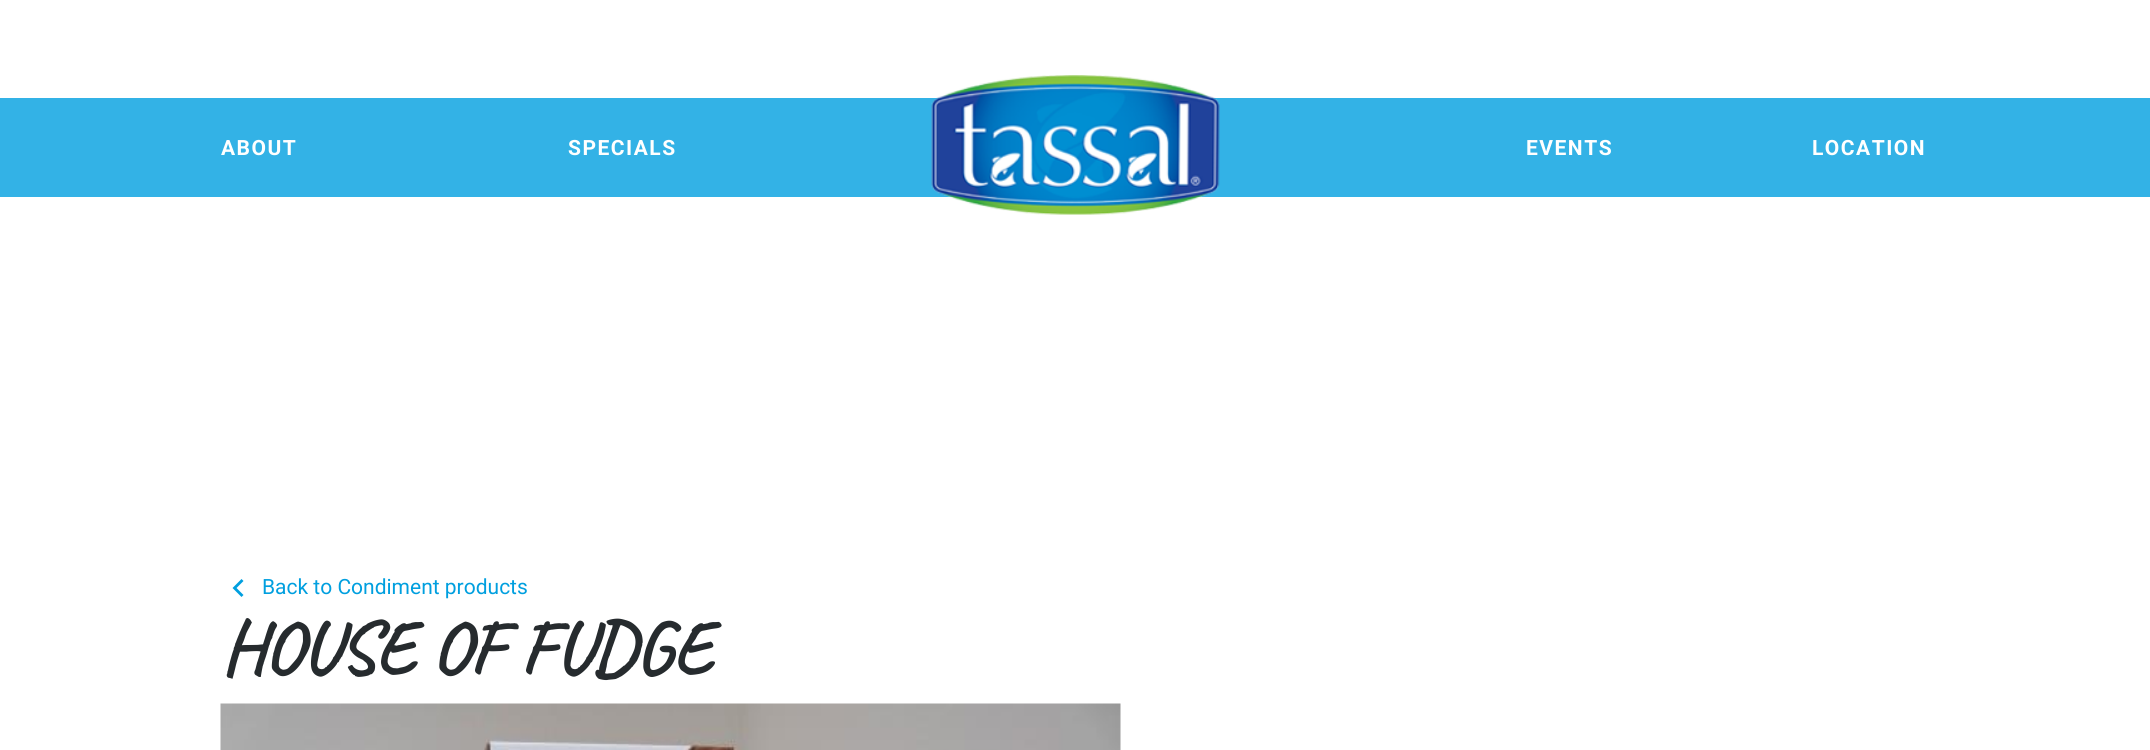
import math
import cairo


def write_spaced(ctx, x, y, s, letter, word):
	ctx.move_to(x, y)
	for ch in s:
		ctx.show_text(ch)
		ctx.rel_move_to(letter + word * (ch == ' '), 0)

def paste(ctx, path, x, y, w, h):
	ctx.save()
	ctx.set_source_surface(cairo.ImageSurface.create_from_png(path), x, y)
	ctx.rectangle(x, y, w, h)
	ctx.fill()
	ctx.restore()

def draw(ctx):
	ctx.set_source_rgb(1, 1, 1)
	ctx.paint()
	ctx.set_source_rgb(0.2, 0.698, 0.902)
	ctx.rectangle(0, 98, 2150, 99)
	ctx.fill()
	paste(ctx, 'media/1.png', 931, 75, 289, 140)
	ctx.select_font_face('Roboto', cairo.FONT_SLANT_NORMAL, cairo.FONT_WEIGHT_BOLD)
	ctx.set_font_size(21)
	ctx.set_source_rgb(1, 1, 1)
	for x, y, s in [
		(221, 155, 'ABOUT'),
		(568, 155, 'SPECIALS'),
		(1526, 155, 'EVENTS'),
		(1812, 155, 'LOCATION'),
	]:
		write_spaced(ctx, x, y, s, 1.5, 0)
	ctx.set_source_rgb(0, 0.624, 0.875)
	ctx.new_path()
	ctx.move_to(243.5, 581)
	ctx.line_to(236.5, 588)
	ctx.line_to(243.5, 595)
	ctx.line_to(241.5, 597)
	ctx.line_to(232.5, 588)
	ctx.line_to(241.5, 579)
	ctx.close_path()
	ctx.fill()
	ctx.select_font_face('Roboto')
	ctx.move_to(262, 594)
	ctx.show_text('Back to Condiment products')
	ctx.select_font_face('Caveat', cairo.FONT_SLANT_NORMAL, cairo.FONT_WEIGHT_BOLD)
	ctx.set_font_size(75)
	ctx.set_source_rgb(0.149, 0.169, 0.18)
	write_spaced(ctx, 221, 672, 'HOUSE OF FUDGE', 0, -2)
	paste(ctx, 'media/2.png', 220, 703, 901, 47)


surface = cairo.ImageSurface(cairo.FORMAT_RGB24, 2150, 750)
ctx = cairo.Context(surface)
options = cairo.FontOptions()
options.set_hint_metrics(cairo.HINT_METRICS_OFF)
options.set_hint_style(cairo.HINT_STYLE_NONE)
ctx.set_font_options(options)
ctx.set_miter_limit(4)
draw(ctx)
surface.write_to_png('image.png')
